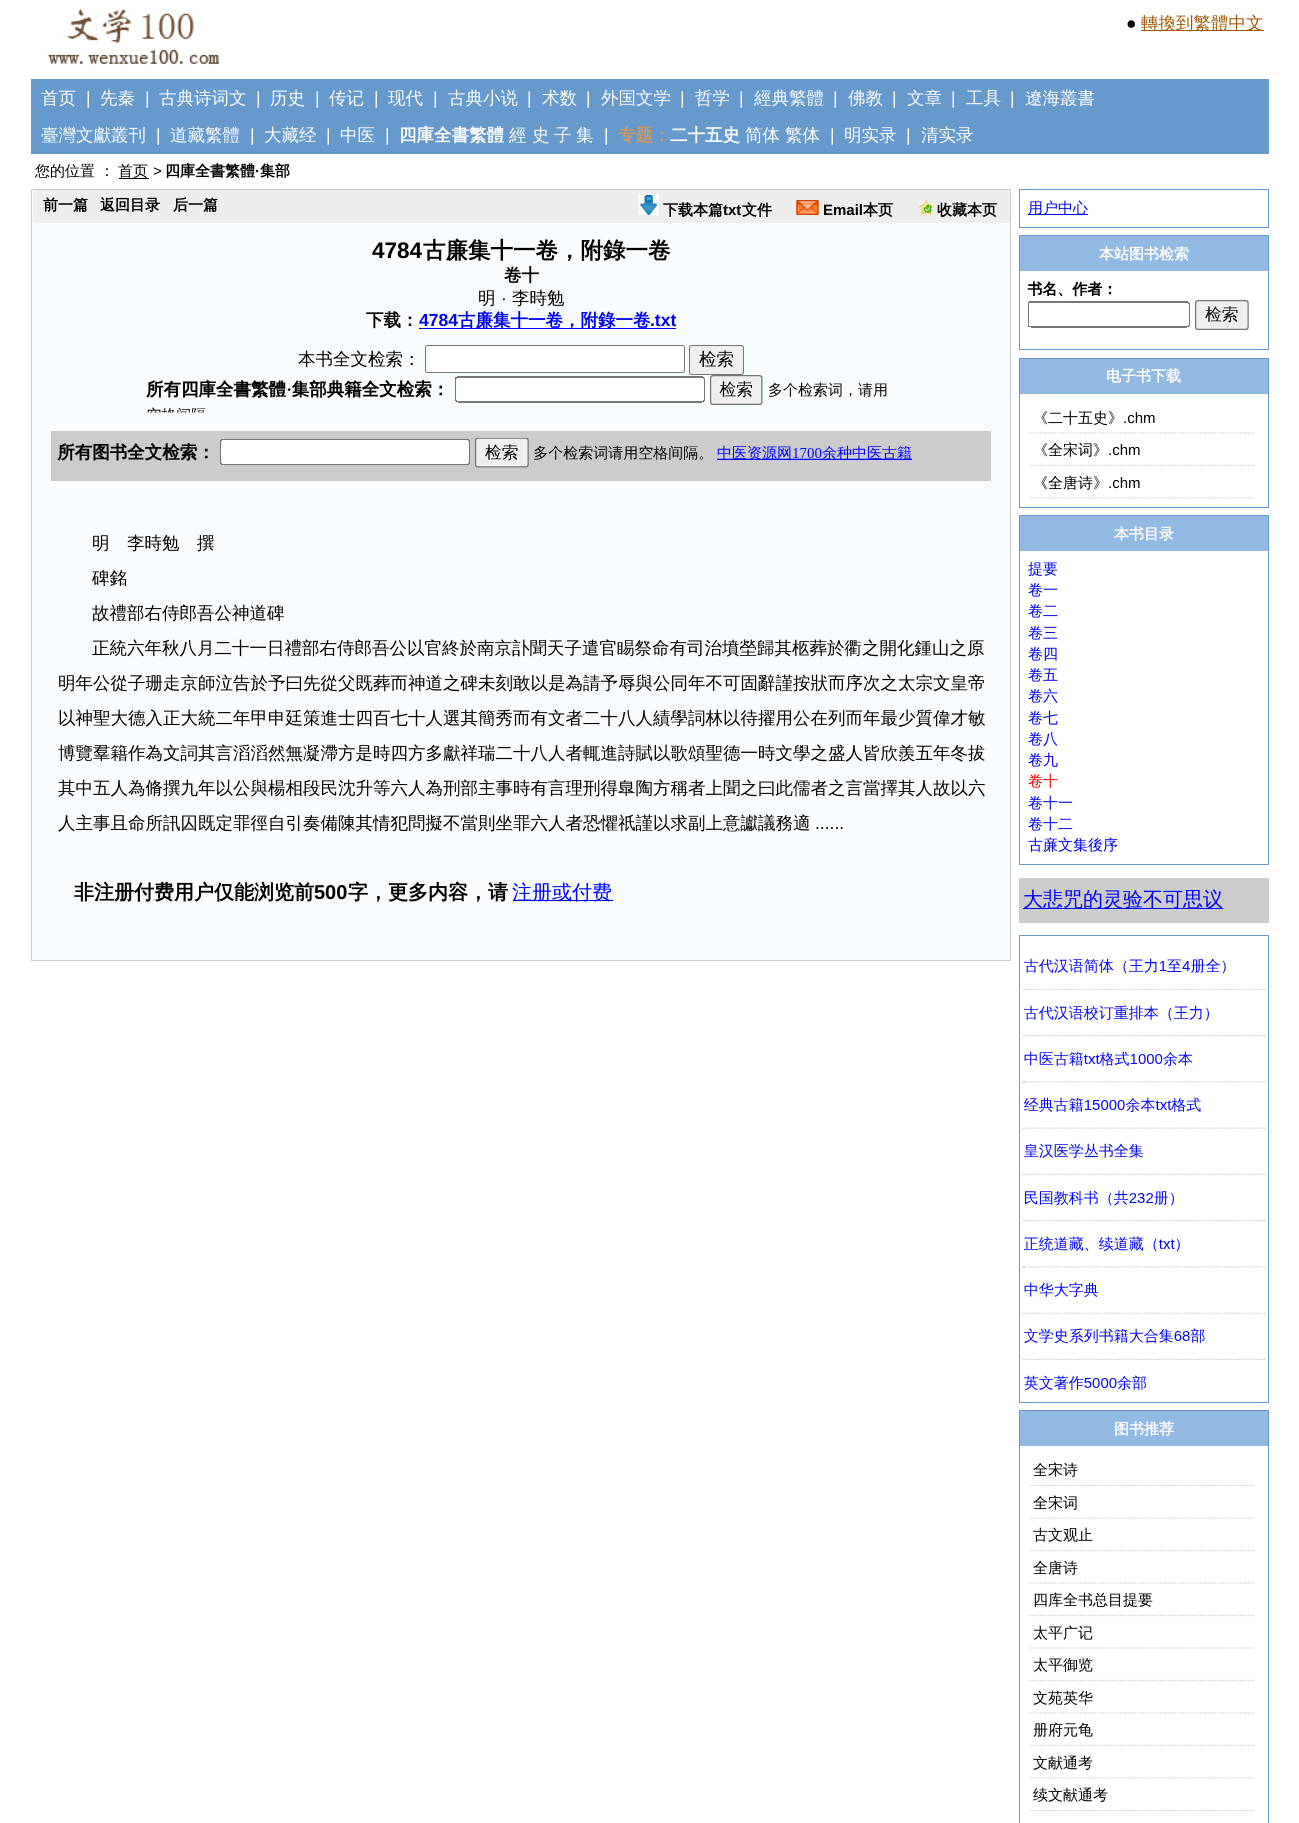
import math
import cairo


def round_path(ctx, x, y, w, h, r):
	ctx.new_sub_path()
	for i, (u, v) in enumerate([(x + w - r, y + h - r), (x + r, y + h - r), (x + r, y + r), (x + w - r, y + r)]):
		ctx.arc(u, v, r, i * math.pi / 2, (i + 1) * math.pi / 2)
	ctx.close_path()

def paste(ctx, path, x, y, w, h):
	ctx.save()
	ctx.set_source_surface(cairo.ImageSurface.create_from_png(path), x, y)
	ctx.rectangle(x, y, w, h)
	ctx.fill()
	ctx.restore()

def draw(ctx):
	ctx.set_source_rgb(1, 1, 1)
	ctx.paint()
	paste(ctx, 'media/1.png', 47, 8, 173, 58)
	ctx.select_font_face('Liberation Sans')
	ctx.set_font_size(17.5)
	ctx.set_source_rgb(0, 0, 0)
	ctx.move_to(1126, 29)
	ctx.show_text('●')
	ctx.set_source_rgb(0.627, 0.345, 0.016)
	ctx.rectangle(1141, 30, 123, 1)
	ctx.fill()
	ctx.select_font_face('WenQuanYi Zen Hei Medium')
	ctx.move_to(1141, 29)
	ctx.show_text('轉換到繁體中文')
	ctx.set_source_rgb(0.4, 0.6, 0.8)
	ctx.rectangle(31, 79, 1238, 75)
	ctx.fill()
	ctx.set_source_rgb(1, 1, 1)
	ctx.move_to(41, 104)
	ctx.show_text('首页')
	ctx.select_font_face('Liberation Sans')
	ctx.move_to(86, 104)
	ctx.show_text('|')
	ctx.select_font_face('WenQuanYi Zen Hei Medium')
	ctx.move_to(100, 104)
	ctx.show_text('先秦')
	ctx.select_font_face('Liberation Sans')
	ctx.move_to(145, 104)
	ctx.show_text('|')
	ctx.select_font_face('WenQuanYi Zen Hei Medium')
	ctx.move_to(159, 104)
	ctx.show_text('古典诗词文')
	ctx.select_font_face('Liberation Sans')
	ctx.move_to(256, 104)
	ctx.show_text('|')
	ctx.select_font_face('WenQuanYi Zen Hei Medium')
	ctx.move_to(270, 104)
	ctx.show_text('历史')
	ctx.select_font_face('Liberation Sans')
	ctx.move_to(315, 104)
	ctx.show_text('|')
	ctx.select_font_face('WenQuanYi Zen Hei Medium')
	ctx.move_to(329, 104)
	ctx.show_text('传记')
	ctx.select_font_face('Liberation Sans')
	ctx.move_to(374, 104)
	ctx.show_text('|')
	ctx.select_font_face('WenQuanYi Zen Hei Medium')
	ctx.move_to(388, 104)
	ctx.show_text('现代')
	ctx.select_font_face('Liberation Sans')
	ctx.move_to(433, 104)
	ctx.show_text('|')
	ctx.select_font_face('WenQuanYi Zen Hei Medium')
	ctx.move_to(448, 104)
	ctx.show_text('古典小说')
	ctx.select_font_face('Liberation Sans')
	ctx.move_to(527, 104)
	ctx.show_text('|')
	ctx.select_font_face('WenQuanYi Zen Hei Medium')
	ctx.move_to(542, 104)
	ctx.show_text('术数')
	ctx.select_font_face('Liberation Sans')
	ctx.move_to(586, 104)
	ctx.show_text('|')
	ctx.select_font_face('WenQuanYi Zen Hei Medium')
	ctx.move_to(601, 104)
	ctx.show_text('外国文学')
	ctx.select_font_face('Liberation Sans')
	ctx.move_to(680, 104)
	ctx.show_text('|')
	ctx.select_font_face('WenQuanYi Zen Hei Medium')
	ctx.move_to(695, 104)
	ctx.show_text('哲学')
	ctx.select_font_face('Liberation Sans')
	ctx.move_to(739, 104)
	ctx.show_text('|')
	ctx.select_font_face('WenQuanYi Zen Hei Medium')
	ctx.move_to(754, 104)
	ctx.show_text('經典繁體')
	ctx.select_font_face('Liberation Sans')
	ctx.move_to(833, 104)
	ctx.show_text('|')
	ctx.select_font_face('WenQuanYi Zen Hei Medium')
	ctx.move_to(848, 104)
	ctx.show_text('佛教')
	ctx.select_font_face('Liberation Sans')
	ctx.move_to(892, 104)
	ctx.show_text('|')
	ctx.select_font_face('WenQuanYi Zen Hei Medium')
	ctx.move_to(907, 104)
	ctx.show_text('文章')
	ctx.select_font_face('Liberation Sans')
	ctx.move_to(951, 104)
	ctx.show_text('|')
	ctx.select_font_face('WenQuanYi Zen Hei Medium')
	ctx.move_to(966, 104)
	ctx.show_text('工具')
	ctx.select_font_face('Liberation Sans')
	ctx.move_to(1010, 104)
	ctx.show_text('|')
	ctx.select_font_face('WenQuanYi Zen Hei Medium')
	ctx.move_to(1025, 104)
	ctx.show_text('遼海叢書')
	ctx.move_to(41, 141)
	ctx.show_text('臺灣文獻叢刊')
	ctx.select_font_face('Liberation Sans')
	ctx.move_to(156, 141)
	ctx.show_text('|')
	ctx.select_font_face('WenQuanYi Zen Hei Medium')
	ctx.move_to(170, 141)
	ctx.show_text('道藏繁體')
	ctx.select_font_face('Liberation Sans')
	ctx.move_to(250, 141)
	ctx.show_text('|')
	ctx.select_font_face('WenQuanYi Zen Hei Medium')
	ctx.move_to(264, 141)
	ctx.show_text('大藏经')
	ctx.select_font_face('Liberation Sans')
	ctx.move_to(326, 141)
	ctx.show_text('|')
	ctx.select_font_face('WenQuanYi Zen Hei Medium')
	ctx.move_to(340, 141)
	ctx.show_text('中医')
	ctx.select_font_face('Liberation Sans')
	ctx.move_to(385, 141)
	ctx.show_text('|')
	ctx.select_font_face('WenQuanYi Zen Hei', cairo.FONT_SLANT_NORMAL, cairo.FONT_WEIGHT_BOLD)
	ctx.move_to(399, 141)
	ctx.show_text('四庫全書繁體')
	ctx.select_font_face('WenQuanYi Zen Hei Medium')
	for x, y, s in [
		(509, 141, '經'),
		(532, 141, '史'),
		(554, 141, '子'),
		(576, 141, '集'),
	]:
		ctx.move_to(x, y)
		ctx.show_text(s)
	ctx.select_font_face('Liberation Sans')
	ctx.move_to(604, 141)
	ctx.show_text('|')
	ctx.select_font_face('WenQuanYi Zen Hei', cairo.FONT_SLANT_NORMAL, cairo.FONT_WEIGHT_BOLD)
	ctx.set_source_rgb(0.8, 0.6, 0.4)
	ctx.move_to(618, 141)
	ctx.show_text('专题：')
	ctx.set_source_rgb(1, 1, 1)
	ctx.move_to(670, 141)
	ctx.show_text('二十五史')
	ctx.select_font_face('WenQuanYi Zen Hei Medium')
	ctx.move_to(745, 141)
	ctx.show_text('简体')
	ctx.move_to(785, 141)
	ctx.show_text('繁体')
	ctx.select_font_face('Liberation Sans')
	ctx.move_to(830, 141)
	ctx.show_text('|')
	ctx.select_font_face('WenQuanYi Zen Hei Medium')
	ctx.move_to(844, 141)
	ctx.show_text('明实录')
	ctx.select_font_face('Liberation Sans')
	ctx.move_to(906, 141)
	ctx.show_text('|')
	ctx.select_font_face('WenQuanYi Zen Hei Medium')
	ctx.move_to(921, 141)
	ctx.show_text('清实录')
	ctx.set_font_size(15)
	ctx.set_source_rgb(0, 0, 0)
	ctx.move_to(35, 176)
	ctx.show_text('您的位置 ：')
	ctx.rectangle(119, 178, 30, 1)
	ctx.fill()
	ctx.move_to(118, 176)
	ctx.show_text('首页')
	ctx.select_font_face('Liberation Sans')
	ctx.move_to(153, 176)
	ctx.show_text('>')
	ctx.select_font_face('WenQuanYi Zen Hei', cairo.FONT_SLANT_NORMAL, cairo.FONT_WEIGHT_BOLD)
	ctx.move_to(165, 176)
	ctx.show_text('四庫全書繁體')
	ctx.select_font_face('Liberation Sans', cairo.FONT_SLANT_NORMAL, cairo.FONT_WEIGHT_BOLD)
	ctx.move_to(255, 176)
	ctx.show_text('·')
	ctx.select_font_face('WenQuanYi Zen Hei', cairo.FONT_SLANT_NORMAL, cairo.FONT_WEIGHT_BOLD)
	ctx.move_to(260, 176)
	ctx.show_text('集部')
	ctx.set_source_rgb(0.973, 0.988, 1)
	ctx.rectangle(31.5, 189.5, 979, 771)
	ctx.fill_preserve()
	ctx.set_source_rgb(0.8, 0.8, 0.8)
	ctx.set_line_width(1)
	ctx.stroke()
	ctx.set_source_rgb(0.933, 0.933, 0.933)
	ctx.rectangle(33, 190, 977, 33)
	ctx.fill()
	ctx.set_source_rgb(0, 0, 0)
	for x, y, s in [
		(43, 210, '前一篇'),
		(100, 210, '返回目录'),
		(173, 210, '后一篇'),
	]:
		ctx.move_to(x, y)
		ctx.show_text(s)
	paste(ctx, 'media/2.png', 638, 195, 21, 20)
	ctx.move_to(663, 215)
	ctx.show_text('下载本篇')
	ctx.select_font_face('Liberation Sans', cairo.FONT_SLANT_NORMAL, cairo.FONT_WEIGHT_BOLD)
	ctx.move_to(723, 215)
	ctx.show_text('txt')
	ctx.select_font_face('WenQuanYi Zen Hei', cairo.FONT_SLANT_NORMAL, cairo.FONT_WEIGHT_BOLD)
	ctx.move_to(742, 215)
	ctx.show_text('文件')
	paste(ctx, 'media/3.png', 796, 200, 23, 15)
	ctx.select_font_face('Liberation Sans', cairo.FONT_SLANT_NORMAL, cairo.FONT_WEIGHT_BOLD)
	ctx.move_to(823, 215)
	ctx.show_text('Email')
	ctx.select_font_face('WenQuanYi Zen Hei', cairo.FONT_SLANT_NORMAL, cairo.FONT_WEIGHT_BOLD)
	ctx.move_to(863, 215)
	ctx.show_text('本页')
	paste(ctx, 'media/4.png', 918, 200, 16, 15)
	ctx.move_to(937, 215)
	ctx.show_text('收藏本页')
	ctx.select_font_face('Liberation Sans', cairo.FONT_SLANT_NORMAL, cairo.FONT_WEIGHT_BOLD)
	ctx.set_font_size(22.5)
	ctx.move_to(372, 258)
	ctx.show_text('4784')
	ctx.select_font_face('WenQuanYi Zen Hei', cairo.FONT_SLANT_NORMAL, cairo.FONT_WEIGHT_BOLD)
	ctx.move_to(423, 258)
	ctx.show_text('古廉集十一卷，附錄一卷')
	ctx.set_font_size(17.5)
	ctx.move_to(504, 281)
	ctx.show_text('卷十')
	ctx.select_font_face('WenQuanYi Zen Hei Medium')
	ctx.move_to(478, 304)
	ctx.show_text('明')
	ctx.select_font_face('Liberation Sans')
	ctx.move_to(501, 304)
	ctx.show_text('·')
	ctx.select_font_face('WenQuanYi Zen Hei Medium')
	ctx.move_to(512, 304)
	ctx.show_text('李時勉')
	ctx.select_font_face('WenQuanYi Zen Hei', cairo.FONT_SLANT_NORMAL, cairo.FONT_WEIGHT_BOLD)
	ctx.move_to(366, 326)
	ctx.show_text('下载：')
	ctx.select_font_face('Liberation Sans', cairo.FONT_SLANT_NORMAL, cairo.FONT_WEIGHT_BOLD)
	ctx.set_source_rgb(0, 0, 0.933)
	ctx.move_to(419, 326)
	ctx.show_text('4784')
	ctx.rectangle(419, 328, 257, 1)
	ctx.fill()
	ctx.select_font_face('WenQuanYi Zen Hei', cairo.FONT_SLANT_NORMAL, cairo.FONT_WEIGHT_BOLD)
	ctx.move_to(458, 326)
	ctx.show_text('古廉集十一卷，附錄一卷')
	ctx.select_font_face('Liberation Sans', cairo.FONT_SLANT_NORMAL, cairo.FONT_WEIGHT_BOLD)
	ctx.move_to(650, 326)
	ctx.show_text('.txt')
	ctx.select_font_face('WenQuanYi Zen Hei Medium')
	ctx.set_source_rgb(0, 0, 0)
	ctx.move_to(298, 365)
	ctx.show_text('本书全文检索：')
	ctx.set_source_rgb(1, 1, 1)
	round_path(ctx, 425.5, 345.5, 259, 27, 2)
	ctx.fill_preserve()
	ctx.set_source_rgb(0.463, 0.463, 0.463)
	ctx.stroke()
	ctx.set_source_rgb(0.937, 0.937, 0.937)
	round_path(ctx, 689.5, 345.5, 54, 29, 2)
	ctx.fill_preserve()
	ctx.set_source_rgb(0.463, 0.463, 0.463)
	ctx.stroke()
	ctx.set_source_rgb(0, 0, 0)
	ctx.move_to(699, 365)
	ctx.show_text('检索')
	paste(ctx, 'media/5.png', 146, 375, 741, 38)
	ctx.set_source_rgb(0.8, 0.8, 0.8)
	ctx.rectangle(51, 431, 940, 50)
	ctx.fill()
	paste(ctx, 'media/6.png', 57, 438, 856, 30)
	ctx.set_source_rgb(0, 0, 0)
	for x, y, s in [
		(92, 549, '明　李時勉　撰'),
		(92, 584, '碑銘'),
		(92, 619, '故禮部右侍郎吾公神道碑'),
		(92, 654, '正統六年秋八月二十一日禮部右侍郎吾公以官終於南京訃聞天子遣官睗祭命有司治墳塋歸其柩葬於衢之開化鍾山之原'),
		(58, 689, '明年公從子珊走京師泣告於予曰先從父既葬而神道之碑未刻敢以是為請予辱與公同年不可固辭謹按狀而序次之太宗文皇帝'),
		(58, 724, '以神聖大德入正大統二年甲申廷策進士四百七十人選其簡秀而有文者二十八人績學詞林以待擢用公在列而年最少質偉才敏'),
		(58, 759, '博覽羣籍作為文詞其言滔滔然無凝滯方是時四方多獻祥瑞二十八人者輒進詩賦以歌頌聖德一時文學之盛人皆欣羨五年冬拔'),
		(58, 794, '其中五人為脩撰九年以公與楊相段民沈升等六人為刑部主事時有言理刑得臯陶方稱者上聞之曰此儒者之言當擇其人故以六'),
		(58, 829, '人主事且命所訊囚既定罪徑自引奏備陳其情犯問擬不當則坐罪六人者恐懼祇謹以求副上意讞議務適'),
	]:
		ctx.move_to(x, y)
		ctx.show_text(s)
	ctx.select_font_face('Liberation Sans')
	ctx.move_to(815, 829)
	ctx.show_text('......')
	ctx.select_font_face('WenQuanYi Zen Hei', cairo.FONT_SLANT_NORMAL, cairo.FONT_WEIGHT_BOLD)
	ctx.set_font_size(20)
	ctx.move_to(74, 899)
	ctx.show_text('非注册付费用户仅能浏览前')
	ctx.select_font_face('Liberation Sans', cairo.FONT_SLANT_NORMAL, cairo.FONT_WEIGHT_BOLD)
	ctx.move_to(314, 899)
	ctx.show_text('500')
	ctx.select_font_face('WenQuanYi Zen Hei', cairo.FONT_SLANT_NORMAL, cairo.FONT_WEIGHT_BOLD)
	ctx.move_to(348, 899)
	ctx.show_text('字，更多内容，请')
	ctx.set_source_rgb(0, 0, 1)
	ctx.rectangle(513, 900, 100, 1)
	ctx.fill()
	ctx.select_font_face('WenQuanYi Zen Hei Medium')
	ctx.move_to(512, 899)
	ctx.show_text('注册或付费')
	ctx.rectangle(1019.5, 189.5, 249, 38)
	ctx.set_source_rgb(0.4, 0.6, 0.8)
	ctx.stroke()
	ctx.set_source_rgb(0, 0, 0.933)
	ctx.rectangle(1028, 214, 60, 1)
	ctx.fill()
	ctx.set_font_size(15)
	ctx.move_to(1028, 213)
	ctx.show_text('用户中心')
	ctx.rectangle(1019.5, 235.5, 249, 114)
	ctx.set_source_rgb(0.4, 0.6, 0.8)
	ctx.stroke()
	ctx.set_source_rgb(0.569, 0.725, 0.886)
	ctx.rectangle(1020, 236, 248, 35)
	ctx.fill()
	ctx.select_font_face('WenQuanYi Zen Hei', cairo.FONT_SLANT_NORMAL, cairo.FONT_WEIGHT_BOLD)
	ctx.set_source_rgb(1, 1, 1)
	ctx.move_to(1099, 259)
	ctx.show_text('本站图书检索')
	paste(ctx, 'media/7.png', 1027, 281, 222, 49)
	ctx.rectangle(1019.5, 358.5, 249, 149)
	ctx.set_source_rgb(0.4, 0.6, 0.8)
	ctx.stroke()
	ctx.set_source_rgb(0.569, 0.725, 0.886)
	ctx.rectangle(1020, 359, 248, 35)
	ctx.fill()
	ctx.set_source_rgb(1, 1, 1)
	ctx.move_to(1106, 381)
	ctx.show_text('电子书下载')
	ctx.new_path()
	ctx.move_to(1030, 433)
	ctx.line_to(1255, 433)
	ctx.set_source_rgb(0.8, 0.8, 0.8)
	ctx.set_line_width(1.2)
	ctx.set_dash([1.25, 1.25])
	ctx.stroke()
	ctx.select_font_face('WenQuanYi Zen Hei Medium')
	ctx.set_source_rgb(0, 0, 0)
	ctx.move_to(1033, 423)
	ctx.show_text('《二十五史》')
	ctx.select_font_face('Liberation Sans')
	ctx.move_to(1123, 423)
	ctx.show_text('.chm')
	ctx.new_path()
	ctx.move_to(1030, 465.5)
	ctx.line_to(1255, 465.5)
	ctx.set_source_rgb(0.8, 0.8, 0.8)
	ctx.stroke()
	ctx.select_font_face('WenQuanYi Zen Hei Medium')
	ctx.set_source_rgb(0, 0, 0)
	ctx.move_to(1033, 455)
	ctx.show_text('《全宋词》')
	ctx.select_font_face('Liberation Sans')
	ctx.move_to(1108, 455)
	ctx.show_text('.chm')
	ctx.new_path()
	ctx.move_to(1030, 498)
	ctx.line_to(1255, 498)
	ctx.set_source_rgb(0.8, 0.8, 0.8)
	ctx.stroke()
	ctx.select_font_face('WenQuanYi Zen Hei Medium')
	ctx.set_source_rgb(0, 0, 0)
	ctx.move_to(1033, 488)
	ctx.show_text('《全唐诗》')
	ctx.select_font_face('Liberation Sans')
	ctx.move_to(1108, 488)
	ctx.show_text('.chm')
	ctx.rectangle(1019.5, 515.5, 249, 349)
	ctx.set_source_rgb(0.4, 0.6, 0.8)
	ctx.set_line_width(1)
	ctx.set_dash([])
	ctx.stroke()
	ctx.set_source_rgb(0.569, 0.725, 0.886)
	ctx.rectangle(1020, 516, 248, 35)
	ctx.fill()
	ctx.select_font_face('WenQuanYi Zen Hei', cairo.FONT_SLANT_NORMAL, cairo.FONT_WEIGHT_BOLD)
	ctx.set_source_rgb(1, 1, 1)
	ctx.move_to(1114, 539)
	ctx.show_text('本书目录')
	ctx.select_font_face('WenQuanYi Zen Hei Medium')
	ctx.set_source_rgb(0, 0, 0.933)
	for x, y, s in [
		(1028, 574, '提要'),
		(1028, 595, '卷一'),
		(1028, 616, '卷二'),
		(1028, 638, '卷三'),
		(1028, 659, '卷四'),
		(1028, 680, '卷五'),
		(1028, 701, '卷六'),
		(1028, 723, '卷七'),
		(1028, 744, '卷八'),
		(1028, 765, '卷九'),
	]:
		ctx.move_to(x, y)
		ctx.show_text(s)
	ctx.set_source_rgb(1, 0, 0)
	ctx.move_to(1028, 786)
	ctx.show_text('卷十')
	ctx.set_source_rgb(0, 0, 0.933)
	for x, y, s in [
		(1028, 808, '卷十一'),
		(1028, 829, '卷十二'),
		(1028, 850, '古亷文集後序'),
	]:
		ctx.move_to(x, y)
		ctx.show_text(s)
	ctx.set_source_rgb(0.8, 0.8, 0.8)
	ctx.rectangle(1019, 878, 250, 45)
	ctx.fill()
	ctx.set_source_rgb(0, 0, 1)
	ctx.rectangle(1023, 908, 200, 1)
	ctx.fill()
	ctx.set_font_size(20)
	ctx.move_to(1023, 906)
	ctx.show_text('大悲咒的灵验不可思议')
	ctx.rectangle(1019.5, 935.5, 249, 467)
	ctx.set_source_rgb(0.4, 0.6, 0.8)
	ctx.stroke()
	paste(ctx, 'media/8.png', 1023, 958, 242, 432)
	ctx.rectangle(1019.5, 1410.5, 249, 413)
	ctx.stroke()
	ctx.set_source_rgb(0.569, 0.725, 0.886)
	ctx.rectangle(1020, 1411, 248, 35)
	ctx.fill()
	ctx.select_font_face('WenQuanYi Zen Hei', cairo.FONT_SLANT_NORMAL, cairo.FONT_WEIGHT_BOLD)
	ctx.set_font_size(15)
	ctx.set_source_rgb(1, 1, 1)
	ctx.move_to(1114, 1434)
	ctx.show_text('图书推荐')
	ctx.new_path()
	ctx.move_to(1030, 1485.5)
	ctx.line_to(1255, 1485.5)
	ctx.set_source_rgb(0.8, 0.8, 0.8)
	ctx.set_line_width(1.2)
	ctx.set_dash([1.25, 1.25])
	ctx.stroke()
	ctx.select_font_face('WenQuanYi Zen Hei Medium')
	ctx.set_source_rgb(0, 0, 0)
	ctx.move_to(1033, 1475)
	ctx.show_text('全宋诗')
	ctx.new_path()
	ctx.move_to(1030, 1518)
	ctx.line_to(1255, 1518)
	ctx.set_source_rgb(0.8, 0.8, 0.8)
	ctx.stroke()
	ctx.set_source_rgb(0, 0, 0)
	ctx.move_to(1033, 1508)
	ctx.show_text('全宋词')
	ctx.new_path()
	ctx.move_to(1030, 1550.5)
	ctx.line_to(1255, 1550.5)
	ctx.set_source_rgb(0.8, 0.8, 0.8)
	ctx.stroke()
	ctx.set_source_rgb(0, 0, 0)
	ctx.move_to(1033, 1540)
	ctx.show_text('古文观止')
	ctx.new_path()
	ctx.move_to(1030, 1583)
	ctx.line_to(1255, 1583)
	ctx.set_source_rgb(0.8, 0.8, 0.8)
	ctx.stroke()
	ctx.set_source_rgb(0, 0, 0)
	ctx.move_to(1033, 1573)
	ctx.show_text('全唐诗')
	ctx.new_path()
	ctx.move_to(1030, 1615.5)
	ctx.line_to(1255, 1615.5)
	ctx.set_source_rgb(0.8, 0.8, 0.8)
	ctx.stroke()
	ctx.set_source_rgb(0, 0, 0)
	ctx.move_to(1033, 1605)
	ctx.show_text('四库全书总目提要')
	ctx.new_path()
	ctx.move_to(1030, 1648)
	ctx.line_to(1255, 1648)
	ctx.set_source_rgb(0.8, 0.8, 0.8)
	ctx.stroke()
	ctx.set_source_rgb(0, 0, 0)
	ctx.move_to(1033, 1638)
	ctx.show_text('太平广记')
	ctx.new_path()
	ctx.move_to(1030, 1680.5)
	ctx.line_to(1255, 1680.5)
	ctx.set_source_rgb(0.8, 0.8, 0.8)
	ctx.stroke()
	ctx.set_source_rgb(0, 0, 0)
	ctx.move_to(1033, 1670)
	ctx.show_text('太平御览')
	ctx.new_path()
	ctx.move_to(1030, 1713)
	ctx.line_to(1255, 1713)
	ctx.set_source_rgb(0.8, 0.8, 0.8)
	ctx.stroke()
	ctx.set_source_rgb(0, 0, 0)
	ctx.move_to(1033, 1703)
	ctx.show_text('文苑英华')
	ctx.new_path()
	ctx.move_to(1030, 1745.5)
	ctx.line_to(1255, 1745.5)
	ctx.set_source_rgb(0.8, 0.8, 0.8)
	ctx.stroke()
	ctx.set_source_rgb(0, 0, 0)
	ctx.move_to(1033, 1735)
	ctx.show_text('册府元龟')
	ctx.new_path()
	ctx.move_to(1030, 1778)
	ctx.line_to(1255, 1778)
	ctx.set_source_rgb(0.8, 0.8, 0.8)
	ctx.stroke()
	ctx.set_source_rgb(0, 0, 0)
	ctx.move_to(1033, 1768)
	ctx.show_text('文献通考')
	ctx.new_path()
	ctx.move_to(1030, 1810.5)
	ctx.line_to(1255, 1810.5)
	ctx.set_source_rgb(0.8, 0.8, 0.8)
	ctx.stroke()
	ctx.set_source_rgb(0, 0, 0)
	ctx.move_to(1033, 1800)
	ctx.show_text('续文献通考')


surface = cairo.ImageSurface(cairo.FORMAT_RGB24, 1299, 1823)
ctx = cairo.Context(surface)
options = cairo.FontOptions()
options.set_hint_metrics(cairo.HINT_METRICS_OFF)
options.set_hint_style(cairo.HINT_STYLE_NONE)
ctx.set_font_options(options)
ctx.set_miter_limit(4)
draw(ctx)
surface.write_to_png('image.png')
